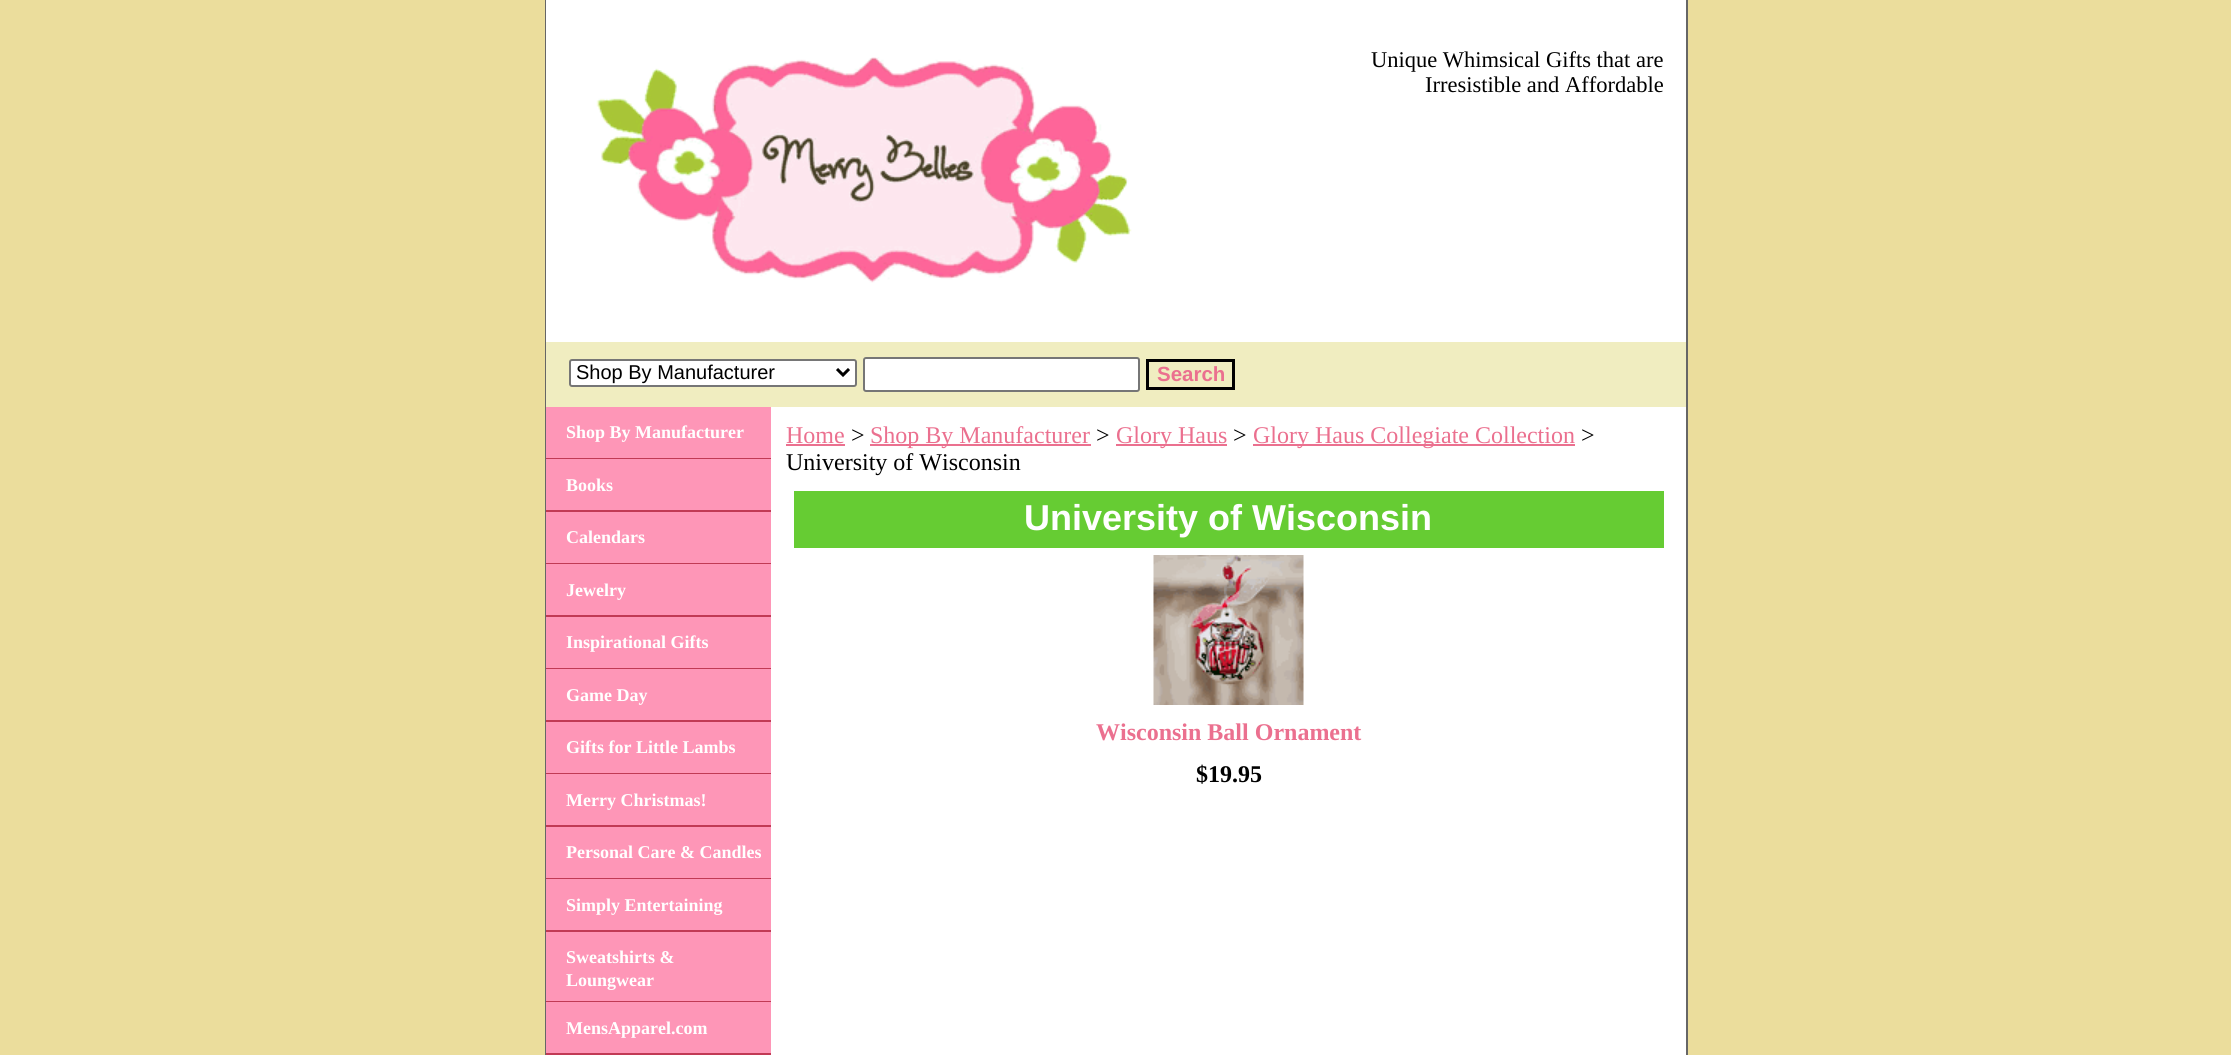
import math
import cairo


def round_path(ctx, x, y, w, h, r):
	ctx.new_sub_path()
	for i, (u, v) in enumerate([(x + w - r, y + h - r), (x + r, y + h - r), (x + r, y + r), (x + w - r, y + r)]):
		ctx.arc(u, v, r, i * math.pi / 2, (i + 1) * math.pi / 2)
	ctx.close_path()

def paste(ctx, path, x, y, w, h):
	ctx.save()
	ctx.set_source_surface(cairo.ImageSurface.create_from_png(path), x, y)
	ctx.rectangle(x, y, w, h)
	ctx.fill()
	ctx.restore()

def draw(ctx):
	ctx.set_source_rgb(0.918, 0.867, 0.612)
	ctx.paint()
	ctx.rectangle(546, -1, 1141, 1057)
	ctx.set_source_rgb(0.4, 0.4, 0.4)
	ctx.stroke()
	ctx.set_source_rgb(1, 1, 1)
	ctx.rectangle(546, 0, 1140, 342)
	ctx.fill()
	paste(ctx, 'media/1.png', 596, 57, 536, 226)
	ctx.select_font_face('Liberation Serif')
	ctx.set_font_size(22.5)
	ctx.set_source_rgb(0, 0, 0)
	ctx.move_to(1371, 67)
	ctx.show_text('Unique Whimsical Gifts that are')
	ctx.move_to(1425, 92)
	ctx.show_text('Irresistible and Affordable')
	ctx.set_source_rgb(0.941, 0.929, 0.753)
	ctx.rectangle(546, 342, 1140, 65)
	ctx.fill()
	ctx.set_source_rgb(1, 1, 1)
	round_path(ctx, 570, 360, 286, 26, 2)
	ctx.fill_preserve()
	ctx.set_source_rgb(0.463, 0.463, 0.463)
	ctx.stroke()
	ctx.new_path()
	ctx.move_to(837, 369)
	ctx.line_to(843, 375)
	ctx.line_to(849, 369)
	ctx.set_source_rgb(0, 0, 0)
	ctx.set_line_width(3)
	ctx.stroke()
	ctx.select_font_face('Liberation Sans')
	ctx.set_font_size(20)
	ctx.move_to(576, 379)
	ctx.show_text('Shop By Manufacturer')
	ctx.set_source_rgb(1, 1, 1)
	round_path(ctx, 864, 358, 275, 33, 2)
	ctx.fill_preserve()
	ctx.set_source_rgb(0.463, 0.463, 0.463)
	ctx.set_line_width(2)
	ctx.stroke()
	ctx.rectangle(1147.5, 360.5, 86, 28)
	ctx.set_source_rgb(0, 0, 0)
	ctx.set_line_width(3)
	ctx.stroke()
	ctx.select_font_face('Liberation Sans', cairo.FONT_SLANT_NORMAL, cairo.FONT_WEIGHT_BOLD)
	ctx.set_font_size(20.5)
	ctx.set_source_rgb(0.918, 0.439, 0.561)
	ctx.move_to(1157, 381)
	ctx.show_text('Search')
	ctx.set_source_rgb(1, 1, 1)
	ctx.rectangle(771, 407, 915, 648)
	ctx.fill()
	ctx.set_source_rgb(0.996, 0.588, 0.718)
	ctx.rectangle(546, 407, 225, 594)
	ctx.fill()
	ctx.set_source_rgb(0.757, 0.227, 0.333)
	ctx.rectangle(546, 458, 225, 1)
	ctx.fill()
	ctx.select_font_face('Liberation Serif', cairo.FONT_SLANT_NORMAL, cairo.FONT_WEIGHT_BOLD)
	ctx.set_font_size(18)
	ctx.set_source_rgb(1, 1, 1)
	ctx.move_to(566, 438)
	ctx.show_text('Shop By Manufacturer')
	ctx.set_source_rgb(0.757, 0.227, 0.333)
	ctx.rectangle(546, 510, 225, 2)
	ctx.fill()
	ctx.set_source_rgb(1, 1, 1)
	ctx.move_to(566, 491)
	ctx.show_text('Books')
	ctx.set_source_rgb(0.757, 0.227, 0.333)
	ctx.rectangle(546, 563, 225, 1)
	ctx.fill()
	ctx.set_source_rgb(1, 1, 1)
	ctx.move_to(566, 543)
	ctx.show_text('Calendars')
	ctx.set_source_rgb(0.757, 0.227, 0.333)
	ctx.rectangle(546, 615, 225, 2)
	ctx.fill()
	ctx.set_source_rgb(1, 1, 1)
	ctx.move_to(566, 596)
	ctx.show_text('Jewelry')
	ctx.set_source_rgb(0.757, 0.227, 0.333)
	ctx.rectangle(546, 668, 225, 1)
	ctx.fill()
	ctx.set_source_rgb(1, 1, 1)
	ctx.move_to(566, 648)
	ctx.show_text('Inspirational Gifts')
	ctx.set_source_rgb(0.757, 0.227, 0.333)
	ctx.rectangle(546, 720, 225, 2)
	ctx.fill()
	ctx.set_source_rgb(1, 1, 1)
	ctx.move_to(566, 701)
	ctx.show_text('Game Day')
	ctx.set_source_rgb(0.757, 0.227, 0.333)
	ctx.rectangle(546, 773, 225, 1)
	ctx.fill()
	ctx.set_source_rgb(1, 1, 1)
	ctx.move_to(566, 753)
	ctx.show_text('Gifts for Little Lambs')
	ctx.set_source_rgb(0.757, 0.227, 0.333)
	ctx.rectangle(546, 825, 225, 2)
	ctx.fill()
	ctx.set_source_rgb(1, 1, 1)
	ctx.move_to(566, 806)
	ctx.show_text('Merry Christmas!')
	ctx.set_source_rgb(0.757, 0.227, 0.333)
	ctx.rectangle(546, 878, 225, 1)
	ctx.fill()
	ctx.set_source_rgb(1, 1, 1)
	ctx.move_to(566, 858)
	ctx.show_text('Personal Care & Candles')
	ctx.set_source_rgb(0.757, 0.227, 0.333)
	ctx.rectangle(546, 930, 225, 2)
	ctx.fill()
	ctx.set_source_rgb(1, 1, 1)
	ctx.move_to(566, 911)
	ctx.show_text('Simply Entertaining')
	ctx.set_source_rgb(0.757, 0.227, 0.333)
	ctx.rectangle(546, 1001, 225, 1)
	ctx.fill()
	ctx.set_source_rgb(1, 1, 1)
	ctx.move_to(566, 963)
	ctx.show_text('Sweatshirts &')
	ctx.move_to(566, 986)
	ctx.show_text('Loungwear')
	ctx.set_source_rgb(0.996, 0.588, 0.718)
	ctx.rectangle(546, 1002, 225, 51)
	ctx.fill()
	ctx.set_source_rgb(0.757, 0.227, 0.333)
	ctx.rectangle(546, 1053, 225, 2)
	ctx.fill()
	ctx.set_source_rgb(1, 1, 1)
	ctx.move_to(566, 1034)
	ctx.show_text('MensApparel.com')
	ctx.select_font_face('Liberation Serif')
	ctx.set_font_size(24)
	ctx.set_source_rgb(0.918, 0.439, 0.561)
	ctx.move_to(786, 443)
	ctx.show_text('Home')
	ctx.rectangle(786, 444, 59, 2)
	ctx.fill()
	ctx.set_source_rgb(0, 0, 0)
	ctx.move_to(851, 443)
	ctx.show_text('>')
	ctx.set_source_rgb(0.918, 0.439, 0.561)
	ctx.rectangle(870, 444, 221, 2)
	ctx.fill()
	ctx.move_to(870, 443)
	ctx.show_text('Shop By Manufacturer')
	ctx.set_source_rgb(0, 0, 0)
	ctx.move_to(1096, 443)
	ctx.show_text('>')
	ctx.set_source_rgb(0.918, 0.439, 0.561)
	ctx.rectangle(1116, 444, 111, 2)
	ctx.fill()
	ctx.move_to(1116, 443)
	ctx.show_text('Glory Haus')
	ctx.set_source_rgb(0, 0, 0)
	ctx.move_to(1233, 443)
	ctx.show_text('>')
	ctx.set_source_rgb(0.918, 0.439, 0.561)
	ctx.rectangle(1253, 444, 322, 2)
	ctx.fill()
	ctx.move_to(1253, 443)
	ctx.show_text('Glory Haus Collegiate Collection')
	ctx.set_source_rgb(0, 0, 0)
	ctx.move_to(1581, 443)
	ctx.show_text('>')
	ctx.move_to(786, 470)
	ctx.show_text('University of Wisconsin')
	ctx.set_source_rgb(0.4, 0.8, 0.2)
	ctx.rectangle(794, 491, 870, 57)
	ctx.fill()
	ctx.select_font_face('Liberation Sans', cairo.FONT_SLANT_NORMAL, cairo.FONT_WEIGHT_BOLD)
	ctx.set_font_size(36)
	ctx.set_source_rgb(1, 1, 1)
	ctx.move_to(1024, 530)
	ctx.show_text('University of Wisconsin')
	paste(ctx, 'media/2.png', 1153, 555, 151, 150)
	ctx.select_font_face('Liberation Serif', cairo.FONT_SLANT_NORMAL, cairo.FONT_WEIGHT_BOLD)
	ctx.set_font_size(24)
	ctx.set_source_rgb(0.918, 0.439, 0.561)
	ctx.move_to(1096, 740)
	ctx.show_text('Wisconsin Ball Ornament')
	ctx.set_source_rgb(0, 0, 0)
	ctx.move_to(1196, 782)
	ctx.show_text('$19.95')


surface = cairo.ImageSurface(cairo.FORMAT_RGB24, 2231, 1055)
ctx = cairo.Context(surface)
options = cairo.FontOptions()
options.set_hint_metrics(cairo.HINT_METRICS_OFF)
options.set_hint_style(cairo.HINT_STYLE_NONE)
ctx.set_font_options(options)
ctx.set_miter_limit(4)
draw(ctx)
surface.write_to_png('image.png')
